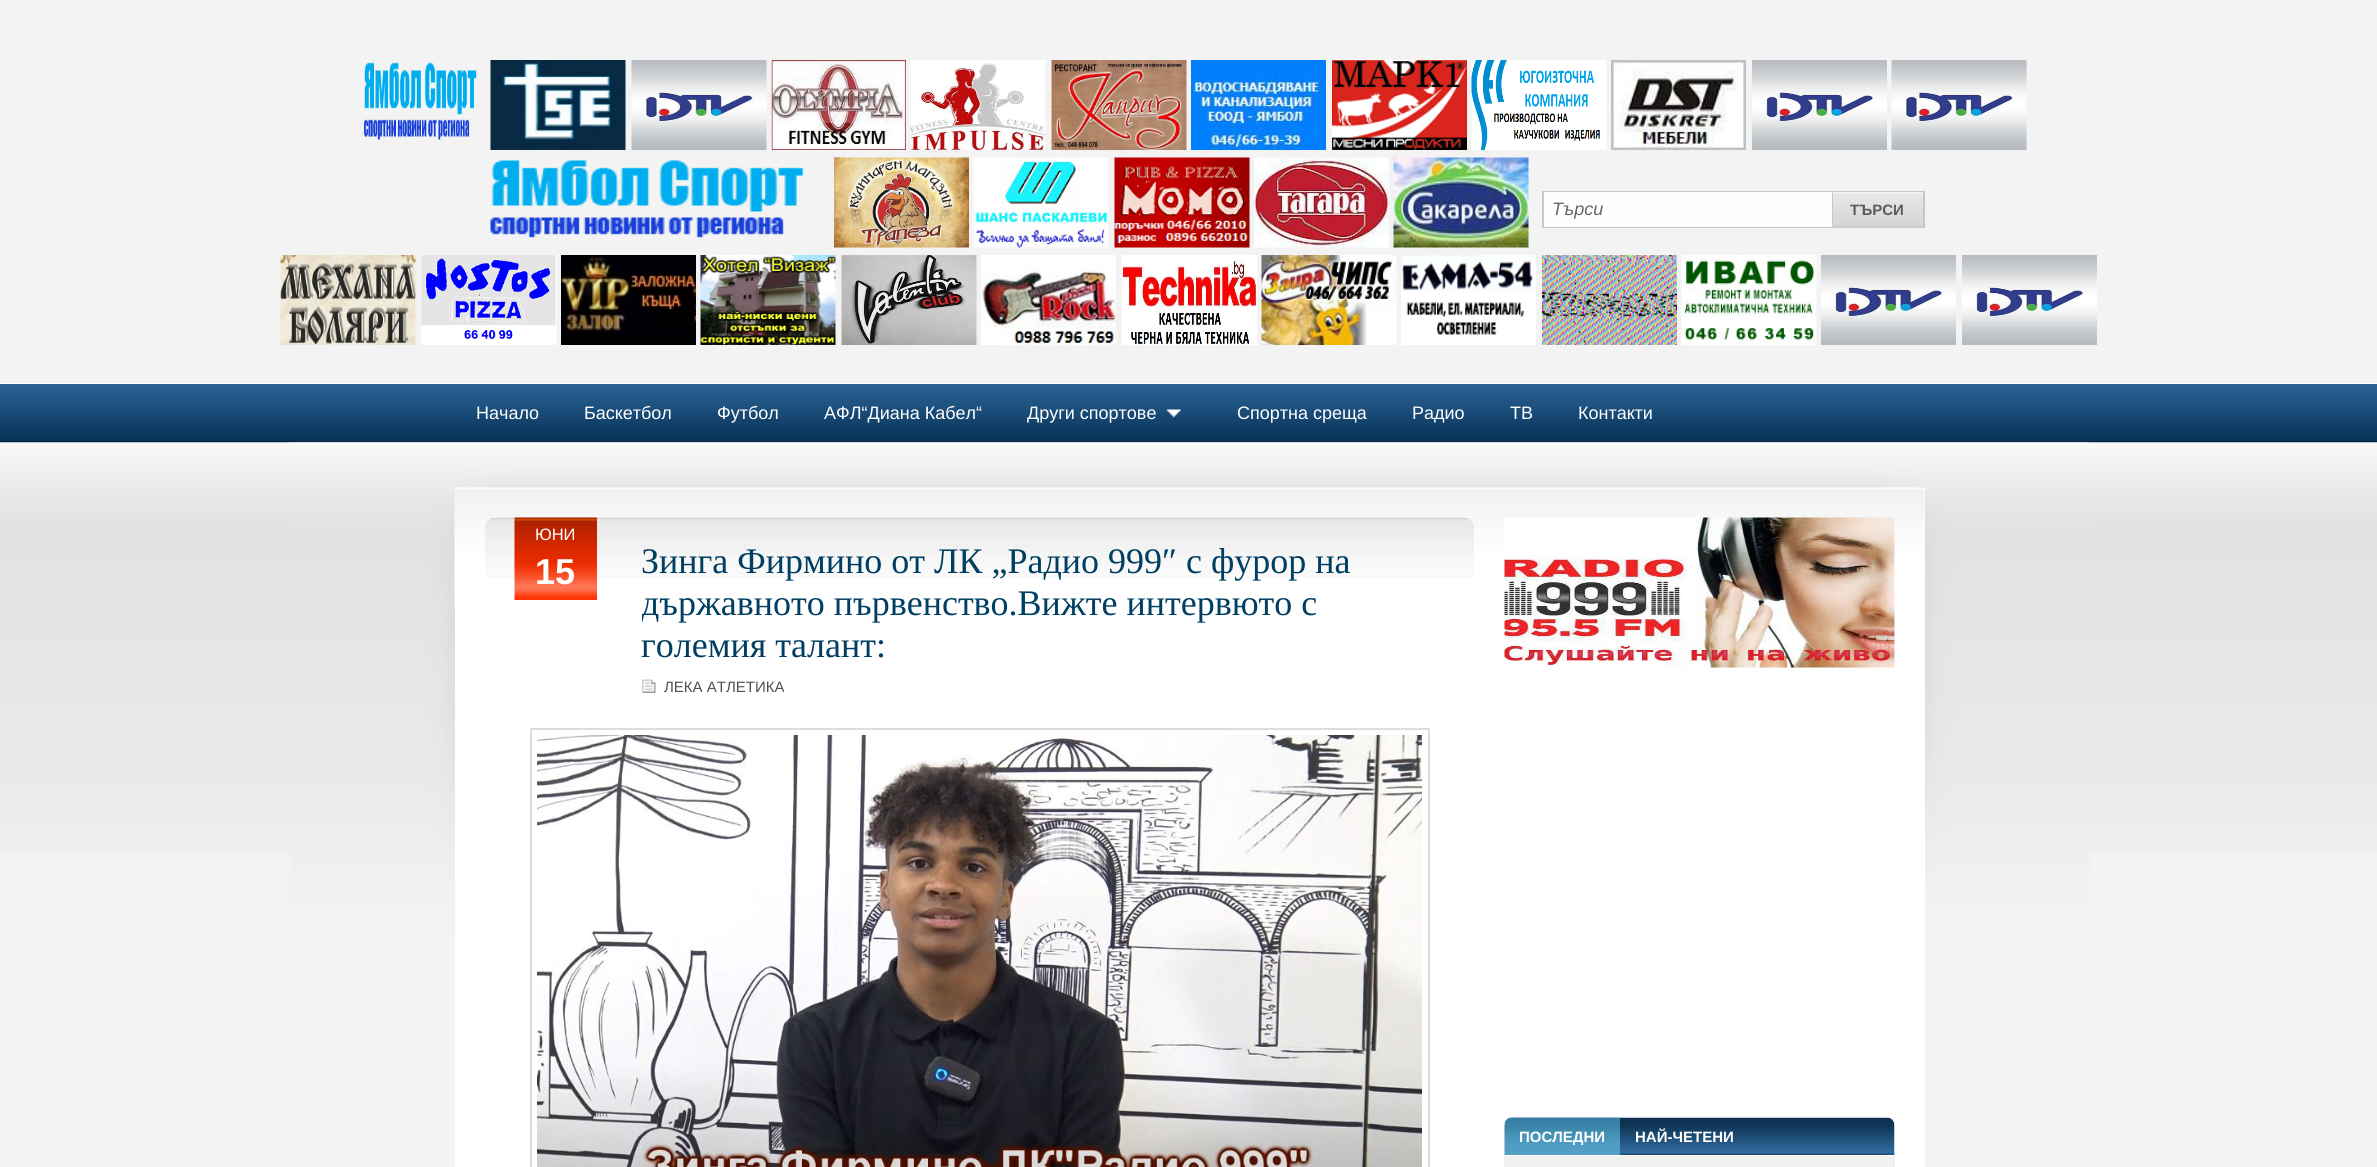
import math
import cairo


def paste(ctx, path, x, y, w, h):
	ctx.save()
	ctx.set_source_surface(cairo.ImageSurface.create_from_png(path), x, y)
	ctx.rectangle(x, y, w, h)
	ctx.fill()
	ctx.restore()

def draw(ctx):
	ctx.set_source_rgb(0.953, 0.953, 0.953)
	ctx.paint()
	ctx.set_source_rgb(1, 1, 1)
	ctx.rectangle(0, 383, 2377, 1)
	ctx.fill()
	paste(ctx, 'media/1.png', 364, 62, 113, 78)
	paste(ctx, 'media/2.png', 490, 60, 136, 90)
	paste(ctx, 'media/3.png', 631, 60, 136, 90)
	paste(ctx, 'media/4.png', 771, 60, 135, 90)
	paste(ctx, 'media/5.png', 910, 60, 136, 90)
	paste(ctx, 'media/6.png', 1051, 60, 136, 90)
	paste(ctx, 'media/7.png', 1191, 60, 135, 90)
	paste(ctx, 'media/8.png', 1332, 60, 135, 90)
	paste(ctx, 'media/9.png', 1471, 60, 136, 90)
	paste(ctx, 'media/10.png', 1611, 60, 135, 90)
	paste(ctx, 'media/11.png', 1752, 60, 135, 90)
	paste(ctx, 'media/12.png', 1891, 60, 136, 90)
	paste(ctx, 'media/13.png', 490, 160, 315, 78)
	paste(ctx, 'media/14.png', 834, 157, 135, 91)
	paste(ctx, 'media/15.png', 973, 157, 136, 91)
	paste(ctx, 'media/16.png', 1114, 157, 136, 91)
	paste(ctx, 'media/17.png', 1254, 157, 135, 91)
	paste(ctx, 'media/18.png', 1393, 157, 136, 91)
	ctx.rectangle(1543, 192, 381, 35)
	ctx.set_source_rgb(0.78, 0.78, 0.78)
	ctx.stroke()
	ctx.set_source_rgb(0.992, 0.996, 0.996)
	ctx.rectangle(1544, 192, 288, 35)
	ctx.fill()
	ctx.set_source_rgb(0.78, 0.78, 0.78)
	ctx.rectangle(1832, 192, 2, 35)
	ctx.fill()
	ctx.select_font_face('Liberation Sans', cairo.FONT_SLANT_ITALIC)
	ctx.set_font_size(18)
	ctx.set_source_rgb(0.4, 0.4, 0.4)
	ctx.move_to(1552, 215)
	ctx.show_text('Търси')
	paste(ctx, 'media/19.png', 1833, 192, 90, 35)
	ctx.select_font_face('Liberation Sans', cairo.FONT_SLANT_NORMAL, cairo.FONT_WEIGHT_BOLD)
	ctx.set_font_size(15)
	ctx.set_source_rgb(0.357, 0.357, 0.357)
	ctx.move_to(1850, 215)
	ctx.show_text('ТЪРСИ')
	paste(ctx, 'media/20.png', 280, 255, 136, 90)
	paste(ctx, 'media/21.png', 421, 255, 136, 90)
	paste(ctx, 'media/22.png', 561, 255, 135, 90)
	paste(ctx, 'media/23.png', 700, 255, 136, 90)
	paste(ctx, 'media/24.png', 841, 255, 136, 90)
	paste(ctx, 'media/25.png', 981, 255, 135, 90)
	paste(ctx, 'media/26.png', 1122, 255, 135, 90)
	paste(ctx, 'media/27.png', 1261, 255, 136, 90)
	paste(ctx, 'media/28.png', 1401, 255, 135, 90)
	paste(ctx, 'media/29.png', 1542, 255, 135, 90)
	paste(ctx, 'media/30.png', 1681, 255, 136, 90)
	paste(ctx, 'media/31.png', 1821, 255, 135, 90)
	paste(ctx, 'media/31.png', 1962, 255, 135, 90)
	paste(ctx, 'media/32.png', 0, 384, 2377, 59)
	ctx.select_font_face('Liberation Sans')
	ctx.set_font_size(18)
	ctx.set_source_rgb(1, 1, 1)
	for x, y, s in [
		(476, 419, 'Начало'),
		(584, 419, 'Баскетбол'),
		(717, 419, 'Футбол'),
		(824, 419, 'АФЛ“Диана Кабел“'),
		(1027, 419, 'Други спортове'),
	]:
		ctx.move_to(x, y)
		ctx.show_text(s)
	paste(ctx, 'media/33.png', 1166, 409, 15, 9)
	for x, y, s in [
		(1237, 419, 'Спортна среща'),
		(1412, 419, 'Радио'),
		(1510, 419, 'ТВ'),
		(1578, 419, 'Контакти'),
	]:
		ctx.move_to(x, y)
		ctx.show_text(s)
	paste(ctx, 'media/34.png', 0, 442, 2377, 411)
	paste(ctx, 'media/35.png', 289, 442, 1801, 701)
	ctx.rectangle(455, 488, 1470, 679)
	ctx.fill()
	paste(ctx, 'media/36.png', 454, 487, 1471, 119)
	paste(ctx, 'media/37.png', 485, 517, 989, 61)
	paste(ctx, 'media/38.png', 514, 517, 83, 83)
	ctx.set_font_size(16.5)
	ctx.move_to(535, 540)
	ctx.show_text('ЮНИ')
	ctx.select_font_face('Liberation Sans', cairo.FONT_SLANT_NORMAL, cairo.FONT_WEIGHT_BOLD)
	ctx.set_font_size(36)
	ctx.move_to(535, 584)
	ctx.show_text('15')
	ctx.select_font_face('Liberation Serif')
	ctx.set_source_rgb(0, 0.247, 0.384)
	ctx.move_to(641, 573)
	ctx.show_text('Зинга Фирмино от ЛК „Радио 999″ с фурор на')
	ctx.save()
	ctx.rectangle(642, 518, 803, 180)
	ctx.clip()
	ctx.move_to(641, 615)
	ctx.show_text('държавното първенство.Вижте интервюто с')
	ctx.restore()
	ctx.move_to(641, 657)
	ctx.show_text('големия талант:')
	paste(ctx, 'media/39.png', 642, 679, 14, 14)
	ctx.select_font_face('Liberation Sans')
	ctx.set_font_size(15)
	ctx.set_source_rgb(0.314, 0.314, 0.314)
	ctx.move_to(664, 692)
	ctx.show_text('ЛЕКА АТЛЕТИКА')
	ctx.rectangle(531, 729, 898, 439)
	ctx.set_source_rgb(0.867, 0.867, 0.867)
	ctx.stroke()
	paste(ctx, 'media/40.png', 537, 735, 885, 432)
	paste(ctx, 'media/41.png', 1504, 517, 391, 151)
	paste(ctx, 'media/42.png', 1504, 1117, 391, 38)
	paste(ctx, 'media/43.png', 1504, 1117, 116, 38)
	ctx.select_font_face('Liberation Sans', cairo.FONT_SLANT_NORMAL, cairo.FONT_WEIGHT_BOLD)
	ctx.set_source_rgb(1, 1, 1)
	ctx.move_to(1519, 1142)
	ctx.show_text('ПОСЛЕДНИ')
	ctx.move_to(1635, 1142)
	ctx.show_text('НАЙ-ЧЕТЕНИ')
	ctx.set_source_rgb(0.941, 0.941, 0.941)
	ctx.rectangle(1504, 1156, 391, 11)
	ctx.fill()


surface = cairo.ImageSurface(cairo.FORMAT_RGB24, 2377, 1167)
ctx = cairo.Context(surface)
options = cairo.FontOptions()
options.set_hint_metrics(cairo.HINT_METRICS_OFF)
options.set_hint_style(cairo.HINT_STYLE_NONE)
ctx.set_font_options(options)
ctx.set_miter_limit(4)
draw(ctx)
surface.write_to_png('image.png')
